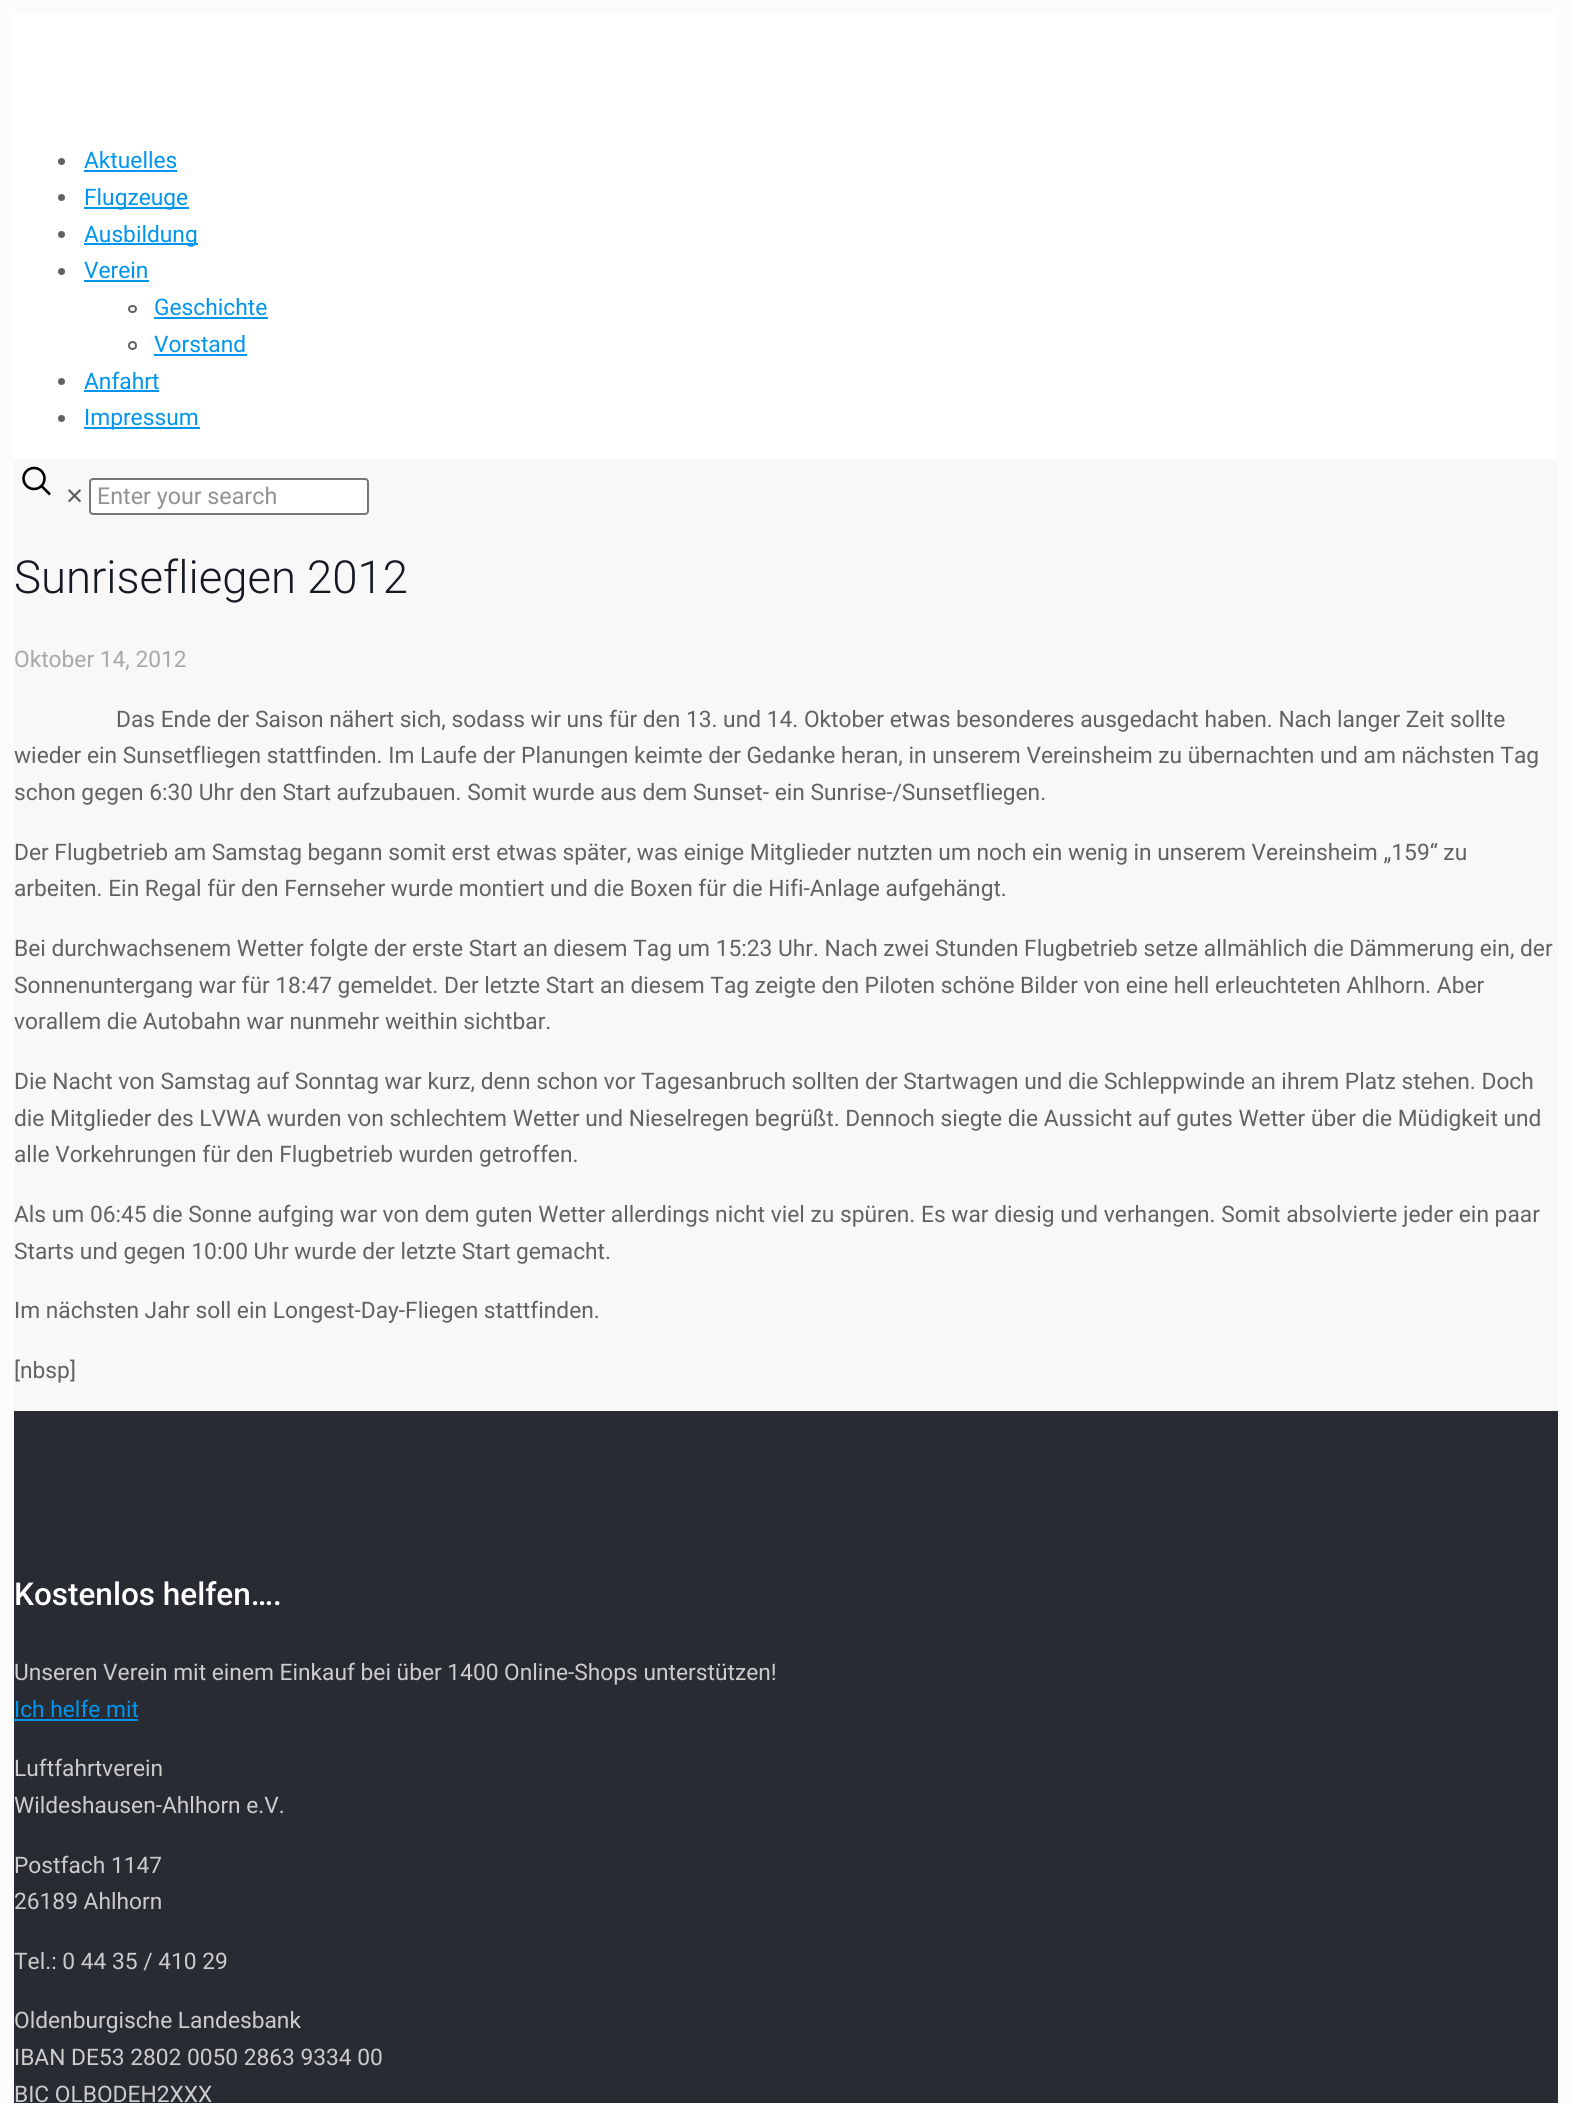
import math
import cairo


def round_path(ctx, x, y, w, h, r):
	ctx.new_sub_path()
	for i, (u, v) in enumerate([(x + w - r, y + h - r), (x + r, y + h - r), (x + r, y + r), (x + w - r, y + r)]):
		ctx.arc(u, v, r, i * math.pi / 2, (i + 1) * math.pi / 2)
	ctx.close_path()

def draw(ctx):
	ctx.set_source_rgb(0.988, 0.988, 0.988)
	ctx.paint()
	ctx.set_source_rgb(0.969, 0.969, 0.969)
	ctx.rectangle(14, 459, 1544, 952)
	ctx.fill()
	ctx.set_source_rgb(1, 1, 1)
	ctx.rectangle(14, 14, 1544, 445)
	ctx.fill()
	ctx.set_source_rgb(0.384, 0.384, 0.384)
	ctx.arc(61.5, 161.5, 3.5, 0, 2 * math.pi)
	ctx.fill()
	ctx.select_font_face('Roboto')
	ctx.set_font_size(22.75)
	ctx.set_source_rgb(0, 0.584, 0.922)
	ctx.move_to(84, 168)
	ctx.show_text('Aktuelles')
	ctx.rectangle(84, 170, 93, 2)
	ctx.fill()
	ctx.set_source_rgb(0.384, 0.384, 0.384)
	ctx.arc(61.5, 197.5, 3.5, 0, 2 * math.pi)
	ctx.fill()
	ctx.set_source_rgb(0, 0.584, 0.922)
	ctx.rectangle(84, 207, 105, 2)
	ctx.fill()
	ctx.move_to(84, 205)
	ctx.show_text('Flugzeuge')
	ctx.set_source_rgb(0.384, 0.384, 0.384)
	ctx.new_path()
	ctx.arc(61.5, 234.5, 3.5, 0, 2 * math.pi)
	ctx.fill()
	ctx.set_source_rgb(0, 0.584, 0.922)
	ctx.rectangle(84, 243, 114, 2)
	ctx.fill()
	ctx.move_to(84, 242)
	ctx.show_text('Ausbildung')
	ctx.set_source_rgb(0.384, 0.384, 0.384)
	ctx.new_path()
	ctx.arc(61.5, 271.5, 3.5, 0, 2 * math.pi)
	ctx.fill()
	ctx.set_source_rgb(0, 0.584, 0.922)
	ctx.move_to(84, 278)
	ctx.show_text('Verein')
	ctx.rectangle(84, 280, 65, 2)
	ctx.fill()
	round_path(ctx, 129, 306, 7, 6, 3)
	ctx.set_source_rgb(0.384, 0.384, 0.384)
	ctx.stroke()
	ctx.set_source_rgb(0, 0.584, 0.922)
	ctx.move_to(154, 315)
	ctx.show_text('Geschichte')
	ctx.rectangle(154, 317, 114, 2)
	ctx.fill()
	ctx.arc(132.5, 345.5, 3.5, 0, 2 * math.pi)
	ctx.set_source_rgb(0.384, 0.384, 0.384)
	ctx.stroke()
	ctx.set_source_rgb(0, 0.584, 0.922)
	ctx.move_to(154, 352)
	ctx.show_text('Vorstand')
	ctx.rectangle(154, 354, 93, 2)
	ctx.fill()
	ctx.set_source_rgb(0.384, 0.384, 0.384)
	ctx.arc(61.5, 381.5, 3.5, 0, 2 * math.pi)
	ctx.fill()
	ctx.set_source_rgb(0, 0.584, 0.922)
	ctx.move_to(84, 389)
	ctx.show_text('Anfahrt')
	ctx.rectangle(84, 390, 75, 2)
	ctx.fill()
	ctx.set_source_rgb(0.384, 0.384, 0.384)
	ctx.arc(61.5, 418.5, 3.5, 0, 2 * math.pi)
	ctx.fill()
	ctx.set_source_rgb(0, 0.584, 0.922)
	ctx.rectangle(84, 427, 116, 2)
	ctx.fill()
	ctx.move_to(84, 425)
	ctx.show_text('Impressum')
	ctx.new_path()
	ctx.arc(34, 478.5, 10.5, 0, 2 * math.pi)
	ctx.set_source_rgb(0, 0, 0)
	ctx.set_line_width(2.6)
	ctx.stroke()
	ctx.new_path()
	ctx.move_to(41.5, 486)
	ctx.line_to(50, 494.5)
	ctx.stroke()
	ctx.select_font_face('DejaVu Sans')
	ctx.set_source_rgb(0.384, 0.384, 0.384)
	ctx.move_to(65, 504)
	ctx.show_text('✕')
	ctx.set_source_rgb(1, 1, 1)
	round_path(ctx, 90, 479, 278, 35, 3)
	ctx.fill_preserve()
	ctx.set_source_rgb(0.463, 0.463, 0.463)
	ctx.set_line_width(2)
	ctx.stroke()
	ctx.select_font_face('Roboto')
	ctx.set_font_size(23.25)
	ctx.set_source_rgb(0.573, 0.573, 0.573)
	ctx.move_to(97, 504)
	ctx.show_text('Enter your search')
	ctx.select_font_face('Roboto Light')
	ctx.set_font_size(45.5)
	ctx.set_source_rgb(0.086, 0.098, 0.133)
	ctx.move_to(14, 593)
	ctx.show_text('Sunrisefliegen 2012')
	ctx.select_font_face('Roboto')
	ctx.set_font_size(22.75)
	ctx.set_source_rgb(0.659, 0.659, 0.659)
	ctx.move_to(14, 667)
	ctx.show_text('Oktober 14, 2012')
	ctx.set_source_rgb(0.384, 0.384, 0.384)
	for x, y, s in [
		(116, 727, 'Das Ende der Saison nähert sich, sodass wir uns für den 13. und 14. Oktober etwas besonderes ausgedacht haben. Nach langer Zeit sollte'),
		(14, 763, 'wieder ein Sunsetfliegen stattfinden. Im Laufe der Planungen keimte der Gedanke heran, in unserem Vereinsheim zu übernachten und am nächsten Tag'),
		(14, 800, 'schon gegen 6:30 Uhr den Start aufzubauen. Somit wurde aus dem Sunset- ein Sunrise-/Sunsetfliegen.'),
		(14, 860, 'Der Flugbetrieb am Samstag begann somit erst etwas später, was einige Mitglieder nutzten um noch ein wenig in unserem Vereinsheim „159“ zu'),
		(14, 896, 'arbeiten. Ein Regal für den Fernseher wurde montiert und die Boxen für die Hifi-Anlage aufgehängt.'),
		(14, 956, 'Bei durchwachsenem Wetter folgte der erste Start an diesem Tag um 15:23 Uhr. Nach zwei Stunden Flugbetrieb setze allmählich die Dämmerung ein, der'),
		(14, 993, 'Sonnenuntergang war für 18:47 gemeldet. Der letzte Start an diesem Tag zeigte den Piloten schöne Bilder von eine hell erleuchteten Ahlhorn. Aber'),
		(14, 1029, 'vorallem die Autobahn war nunmehr weithin sichtbar.'),
		(14, 1089, 'Die Nacht von Samstag auf Sonntag war kurz, denn schon vor Tagesanbruch sollten der Startwagen und die Schleppwinde an ihrem Platz stehen. Doch'),
		(14, 1126, 'die Mitglieder des LVWA wurden von schlechtem Wetter und Nieselregen begrüßt. Dennoch siegte die Aussicht auf gutes Wetter über die Müdigkeit und'),
		(14, 1162, 'alle Vorkehrungen für den Flugbetrieb wurden getroffen.'),
		(14, 1222, 'Als um 06:45 die Sonne aufging war von dem guten Wetter allerdings nicht viel zu spüren. Es war diesig und verhangen. Somit absolvierte jeder ein paar'),
		(14, 1259, 'Starts und gegen 10:00 Uhr wurde der letzte Start gemacht.'),
		(14, 1318, 'Im nächsten Jahr soll ein Longest-Day-Fliegen stattfinden.'),
		(14, 1378, '[nbsp]'),
	]:
		ctx.move_to(x, y)
		ctx.show_text(s)
	ctx.set_source_rgb(0.161, 0.169, 0.2)
	ctx.rectangle(14, 1411, 1544, 692)
	ctx.fill()
	ctx.select_font_face('Roboto Medium')
	ctx.set_font_size(31.5)
	ctx.set_source_rgb(1, 1, 1)
	ctx.move_to(14, 1605)
	ctx.show_text('Kostenlos helfen….')
	ctx.select_font_face('Roboto')
	ctx.set_font_size(22.75)
	ctx.set_source_rgb(0.8, 0.8, 0.8)
	ctx.move_to(14, 1680)
	ctx.show_text('Unseren Verein mit einem Einkauf bei über 1400 Online-Shops unterstützen!')
	ctx.set_source_rgb(0, 0.584, 0.922)
	ctx.move_to(14, 1717)
	ctx.show_text('Ich helfe mit')
	ctx.rectangle(14, 1719, 124, 2)
	ctx.fill()
	ctx.set_source_rgb(0.8, 0.8, 0.8)
	for x, y, s in [
		(14, 1776, 'Luftfahrtverein'),
		(14, 1813, 'Wildeshausen-Ahlhorn e.V.'),
		(14, 1873, 'Postfach 1147'),
		(14, 1909, '26189 Ahlhorn'),
		(14, 1969, 'Tel.: 0 44 35 / 410 29'),
		(14, 2028, 'Oldenburgische Landesbank'),
		(14, 2065, 'IBAN DE53 2802 0050 2863 9334 00'),
		(14, 2102, 'BIC OLBODEH2XXX'),
	]:
		ctx.move_to(x, y)
		ctx.show_text(s)


surface = cairo.ImageSurface(cairo.FORMAT_RGB24, 1570, 2103)
ctx = cairo.Context(surface)
options = cairo.FontOptions()
options.set_hint_metrics(cairo.HINT_METRICS_OFF)
options.set_hint_style(cairo.HINT_STYLE_NONE)
ctx.set_font_options(options)
ctx.set_miter_limit(4)
draw(ctx)
surface.write_to_png('image.png')
